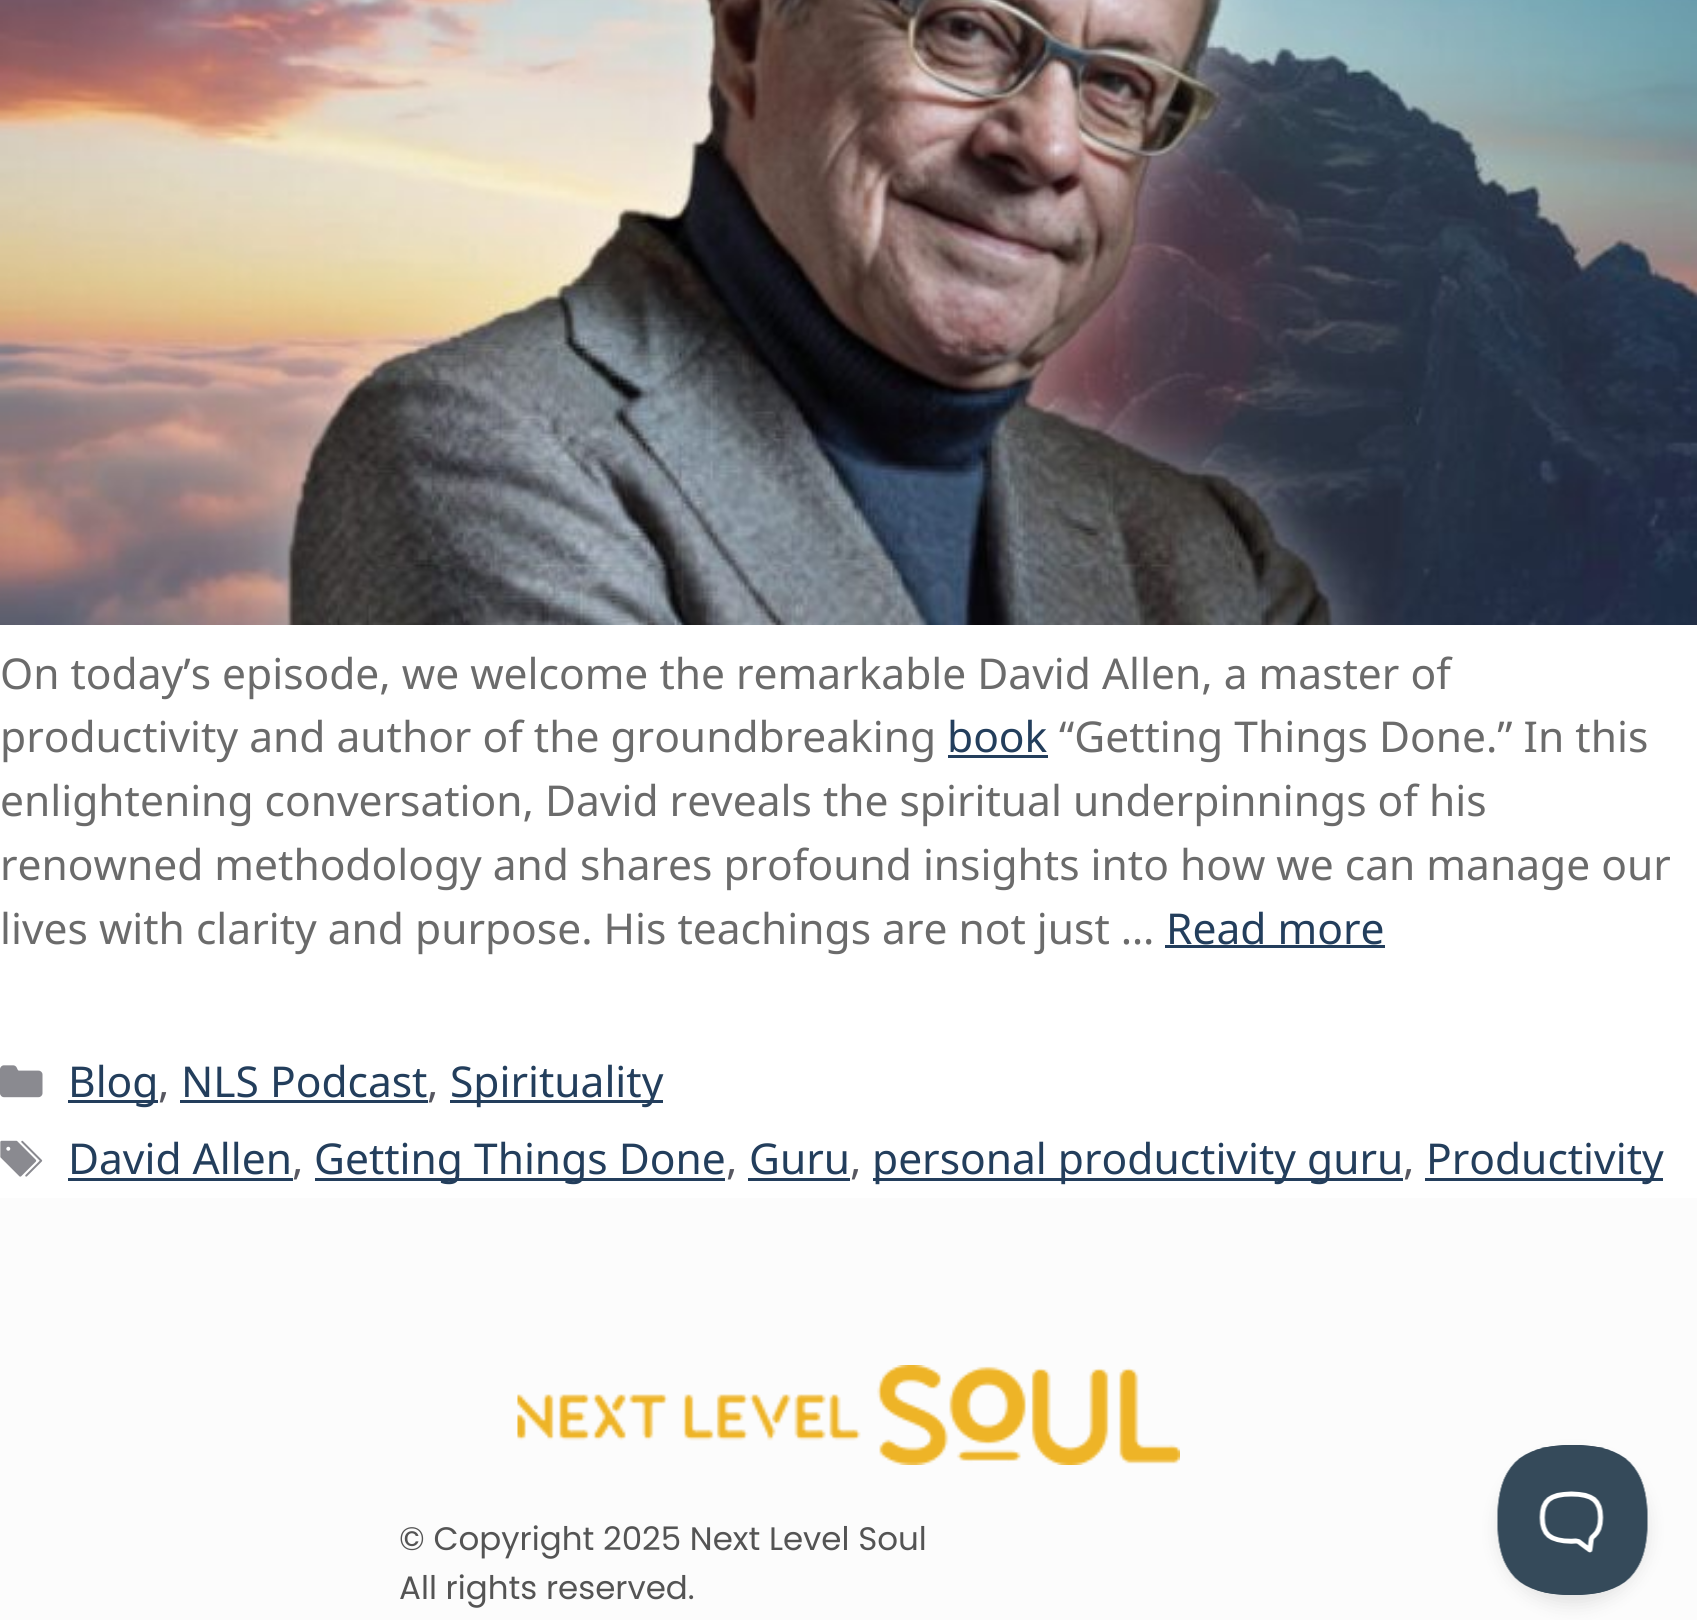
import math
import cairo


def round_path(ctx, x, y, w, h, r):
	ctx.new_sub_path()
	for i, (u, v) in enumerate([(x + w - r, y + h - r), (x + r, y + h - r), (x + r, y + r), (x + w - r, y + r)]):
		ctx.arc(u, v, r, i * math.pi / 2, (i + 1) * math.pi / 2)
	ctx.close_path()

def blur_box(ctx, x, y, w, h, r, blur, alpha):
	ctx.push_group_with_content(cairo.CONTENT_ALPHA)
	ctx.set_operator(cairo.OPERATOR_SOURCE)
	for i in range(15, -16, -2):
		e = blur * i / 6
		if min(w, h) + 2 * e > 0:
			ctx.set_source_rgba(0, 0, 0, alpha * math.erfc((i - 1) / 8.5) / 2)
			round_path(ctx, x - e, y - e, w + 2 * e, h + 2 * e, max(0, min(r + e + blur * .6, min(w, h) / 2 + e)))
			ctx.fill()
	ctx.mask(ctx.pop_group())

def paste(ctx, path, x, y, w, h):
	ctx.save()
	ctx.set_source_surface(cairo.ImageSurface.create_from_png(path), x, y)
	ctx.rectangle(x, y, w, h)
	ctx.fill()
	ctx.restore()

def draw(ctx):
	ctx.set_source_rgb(1, 1, 1)
	ctx.paint()
	paste(ctx, 'media/1.png', 0, 0, 1697, 625)
	ctx.select_font_face('Noto Sans')
	ctx.set_font_size(42.5)
	ctx.set_source_rgb(0.42, 0.42, 0.42)
	ctx.move_to(0, 689)
	ctx.show_text('On today’s episode, we welcome the remarkable David Allen, a master of')
	ctx.move_to(0, 752)
	ctx.show_text('productivity and author of the groundbreaking')
	ctx.set_source_rgb(0.137, 0.243, 0.361)
	ctx.move_to(947, 752)
	ctx.show_text('book')
	ctx.rectangle(948, 755, 100, 3)
	ctx.fill()
	ctx.set_source_rgb(0.42, 0.42, 0.42)
	for x, y, s in [
		(1059, 752, '“Getting Things Done.” In this'),
		(0, 816, 'enlightening conversation, David reveals the spiritual underpinnings of his'),
		(0, 880, 'renowned methodology and shares profound insights into how we can manage our'),
		(0, 944, 'lives with clarity and purpose. His teachings are not just …'),
	]:
		ctx.move_to(x, y)
		ctx.show_text(s)
	ctx.set_source_rgb(0.137, 0.243, 0.361)
	ctx.move_to(1166, 944)
	ctx.show_text('Read more')
	ctx.rectangle(1165, 945, 220, 3)
	ctx.fill()
	paste(ctx, 'media/2.png', 0, 1065, 43, 33)
	ctx.rectangle(68, 1100, 90, 3)
	ctx.fill()
	ctx.move_to(68, 1097)
	ctx.show_text('Blog')
	ctx.set_source_rgb(0.341, 0.341, 0.376)
	ctx.move_to(158, 1097)
	ctx.show_text(',')
	ctx.set_source_rgb(0.137, 0.243, 0.361)
	ctx.move_to(181, 1097)
	ctx.show_text('NLS Podcast')
	ctx.rectangle(180, 1100, 248, 3)
	ctx.fill()
	ctx.set_source_rgb(0.341, 0.341, 0.376)
	ctx.move_to(427, 1097)
	ctx.show_text(',')
	ctx.set_source_rgb(0.137, 0.243, 0.361)
	ctx.rectangle(450, 1100, 213, 3)
	ctx.fill()
	ctx.move_to(450, 1097)
	ctx.show_text('Spirituality')
	paste(ctx, 'media/3.png', 0, 1140, 43, 37)
	ctx.move_to(68, 1174)
	ctx.show_text('David Allen')
	ctx.rectangle(68, 1178, 225, 3)
	ctx.fill()
	ctx.set_source_rgb(0.341, 0.341, 0.376)
	ctx.move_to(292, 1174)
	ctx.show_text(',')
	ctx.set_source_rgb(0.137, 0.243, 0.361)
	ctx.rectangle(315, 1178, 410, 3)
	ctx.fill()
	ctx.move_to(314, 1174)
	ctx.show_text('Getting Things Done')
	ctx.set_source_rgb(0.341, 0.341, 0.376)
	ctx.move_to(726, 1174)
	ctx.show_text(',')
	ctx.set_source_rgb(0.137, 0.243, 0.361)
	ctx.move_to(749, 1174)
	ctx.show_text('Guru')
	ctx.rectangle(748, 1178, 102, 3)
	ctx.fill()
	ctx.set_source_rgb(0.341, 0.341, 0.376)
	ctx.move_to(850, 1174)
	ctx.show_text(',')
	ctx.set_source_rgb(0.137, 0.243, 0.361)
	ctx.rectangle(873, 1178, 530, 3)
	ctx.fill()
	ctx.move_to(872, 1174)
	ctx.show_text('personal productivity guru')
	ctx.set_source_rgb(0.341, 0.341, 0.376)
	ctx.move_to(1403, 1174)
	ctx.show_text(',')
	ctx.set_source_rgb(0.137, 0.243, 0.361)
	ctx.rectangle(1425, 1178, 238, 3)
	ctx.fill()
	ctx.move_to(1426, 1174)
	ctx.show_text('Productivity')
	ctx.set_source_rgb(0.988, 0.988, 0.988)
	ctx.rectangle(0, 1198, 1697, 422)
	ctx.fill()
	paste(ctx, 'media/4.png', 517, 1365, 663, 100)
	ctx.select_font_face('Poppins')
	ctx.set_font_size(32.5)
	ctx.set_source_rgb(0.329, 0.329, 0.329)
	ctx.move_to(399, 1550)
	ctx.show_text('© Copyright 2025 Next Level Soul')
	ctx.move_to(399, 1599)
	ctx.show_text('All rights reserved.')
	ctx.set_source_rgb(0, 0, 0)
	blur_box(ctx, 1498, 1455, 150, 150, 75, 9, 0.1)
	paste(ctx, 'media/5.png', 1497, 1445, 151, 150)


surface = cairo.ImageSurface(cairo.FORMAT_RGB24, 1697, 1620)
ctx = cairo.Context(surface)
options = cairo.FontOptions()
options.set_hint_metrics(cairo.HINT_METRICS_OFF)
options.set_hint_style(cairo.HINT_STYLE_NONE)
ctx.set_font_options(options)
ctx.set_miter_limit(4)
draw(ctx)
surface.write_to_png('image.png')
